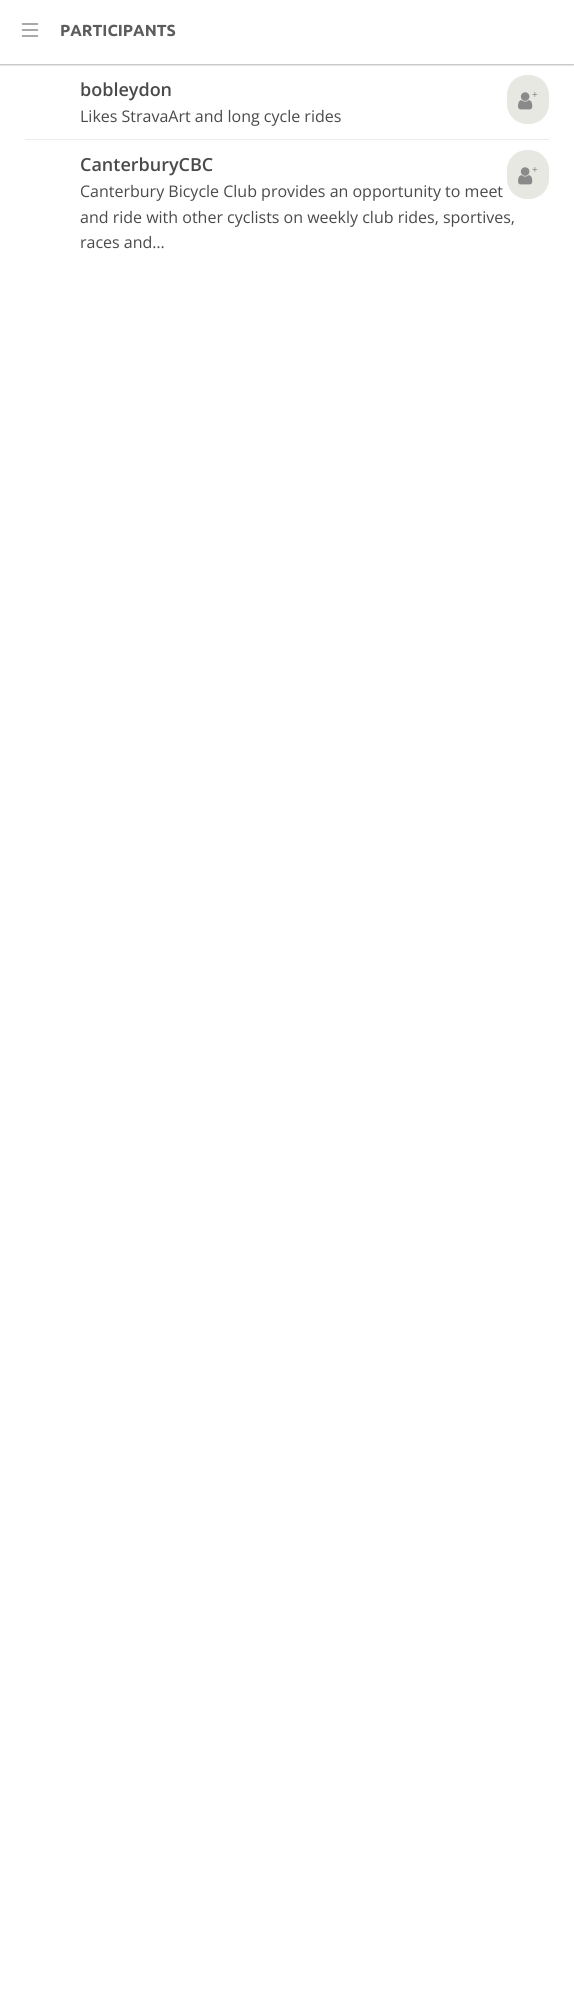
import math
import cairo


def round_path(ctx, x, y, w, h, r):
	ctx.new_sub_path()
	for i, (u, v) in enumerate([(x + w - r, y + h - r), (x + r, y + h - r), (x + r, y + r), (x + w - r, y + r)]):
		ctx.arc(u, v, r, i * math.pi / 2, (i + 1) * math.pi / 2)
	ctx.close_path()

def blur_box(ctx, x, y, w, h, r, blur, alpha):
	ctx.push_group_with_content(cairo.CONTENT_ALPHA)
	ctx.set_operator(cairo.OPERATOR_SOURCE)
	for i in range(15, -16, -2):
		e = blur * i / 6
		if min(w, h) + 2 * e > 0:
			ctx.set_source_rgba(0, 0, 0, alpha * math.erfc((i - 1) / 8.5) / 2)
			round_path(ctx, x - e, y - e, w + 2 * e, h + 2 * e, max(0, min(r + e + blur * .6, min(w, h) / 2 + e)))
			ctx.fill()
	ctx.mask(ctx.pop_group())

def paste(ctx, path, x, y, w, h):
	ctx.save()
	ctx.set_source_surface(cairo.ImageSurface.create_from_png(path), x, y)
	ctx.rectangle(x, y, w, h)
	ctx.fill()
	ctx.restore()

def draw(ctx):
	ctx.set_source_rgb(1, 1, 1)
	ctx.paint()
	ctx.save()
	ctx.rectangle(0, 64, 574, 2)
	ctx.clip()
	ctx.set_source_rgb(0, 0, 0)
	blur_box(ctx, 0, 1, 574, 64, 0, 1, 0.3)
	ctx.restore()
	paste(ctx, 'media/1.png', 21, 23, 18, 14)
	ctx.select_font_face('Ubuntu', cairo.FONT_SLANT_NORMAL, cairo.FONT_WEIGHT_BOLD)
	ctx.set_font_size(16)
	ctx.set_source_rgb(0.361, 0.361, 0.361)
	ctx.move_to(60, 36)
	ctx.show_text('PARTICIPANTS')
	ctx.set_source_rgb(0.929, 0.929, 0.91)
	ctx.rectangle(25, 139, 524, 1)
	ctx.fill()
	ctx.select_font_face('Open Sans SemiBold')
	ctx.set_font_size(18)
	ctx.set_source_rgb(0.29, 0.29, 0.29)
	ctx.move_to(80, 96)
	ctx.show_text('bobleydon')
	ctx.select_font_face('Open Sans')
	ctx.set_font_size(16)
	ctx.move_to(80, 122)
	ctx.show_text('Likes StravaArt and long cycle rides')
	ctx.set_source_rgb(0.91, 0.91, 0.886)
	round_path(ctx, 507.5, 75.5, 41, 48, 19.5)
	ctx.fill_preserve()
	ctx.set_line_width(1)
	ctx.stroke()
	paste(ctx, 'media/2.png', 518, 92, 15, 18)
	ctx.select_font_face('Open Sans Medium')
	ctx.set_font_size(10)
	ctx.set_source_rgb(0.541, 0.541, 0.541)
	ctx.move_to(532, 98)
	ctx.show_text('+')
	ctx.select_font_face('Open Sans SemiBold')
	ctx.set_font_size(18)
	ctx.set_source_rgb(0.29, 0.29, 0.29)
	ctx.move_to(80, 171)
	ctx.show_text('CanterburyCBC')
	ctx.select_font_face('Open Sans')
	ctx.set_font_size(16)
	for x, y, s in [
		(80, 197, 'Canterbury Bicycle Club provides an opportunity to meet'),
		(80, 223, 'and ride with other cyclists on weekly club rides, sportives,'),
		(80, 248, 'races and…'),
	]:
		ctx.move_to(x, y)
		ctx.show_text(s)
	ctx.set_source_rgb(0.91, 0.91, 0.886)
	round_path(ctx, 507.5, 150.5, 41, 48, 19.5)
	ctx.fill_preserve()
	ctx.stroke()
	paste(ctx, 'media/2.png', 518, 167, 15, 18)
	ctx.select_font_face('Open Sans Medium')
	ctx.set_font_size(10)
	ctx.set_source_rgb(0.541, 0.541, 0.541)
	ctx.move_to(532, 173)
	ctx.show_text('+')


surface = cairo.ImageSurface(cairo.FORMAT_RGB24, 574, 1995)
ctx = cairo.Context(surface)
options = cairo.FontOptions()
options.set_hint_metrics(cairo.HINT_METRICS_OFF)
options.set_hint_style(cairo.HINT_STYLE_NONE)
ctx.set_font_options(options)
ctx.set_miter_limit(4)
draw(ctx)
surface.write_to_png('image.png')
